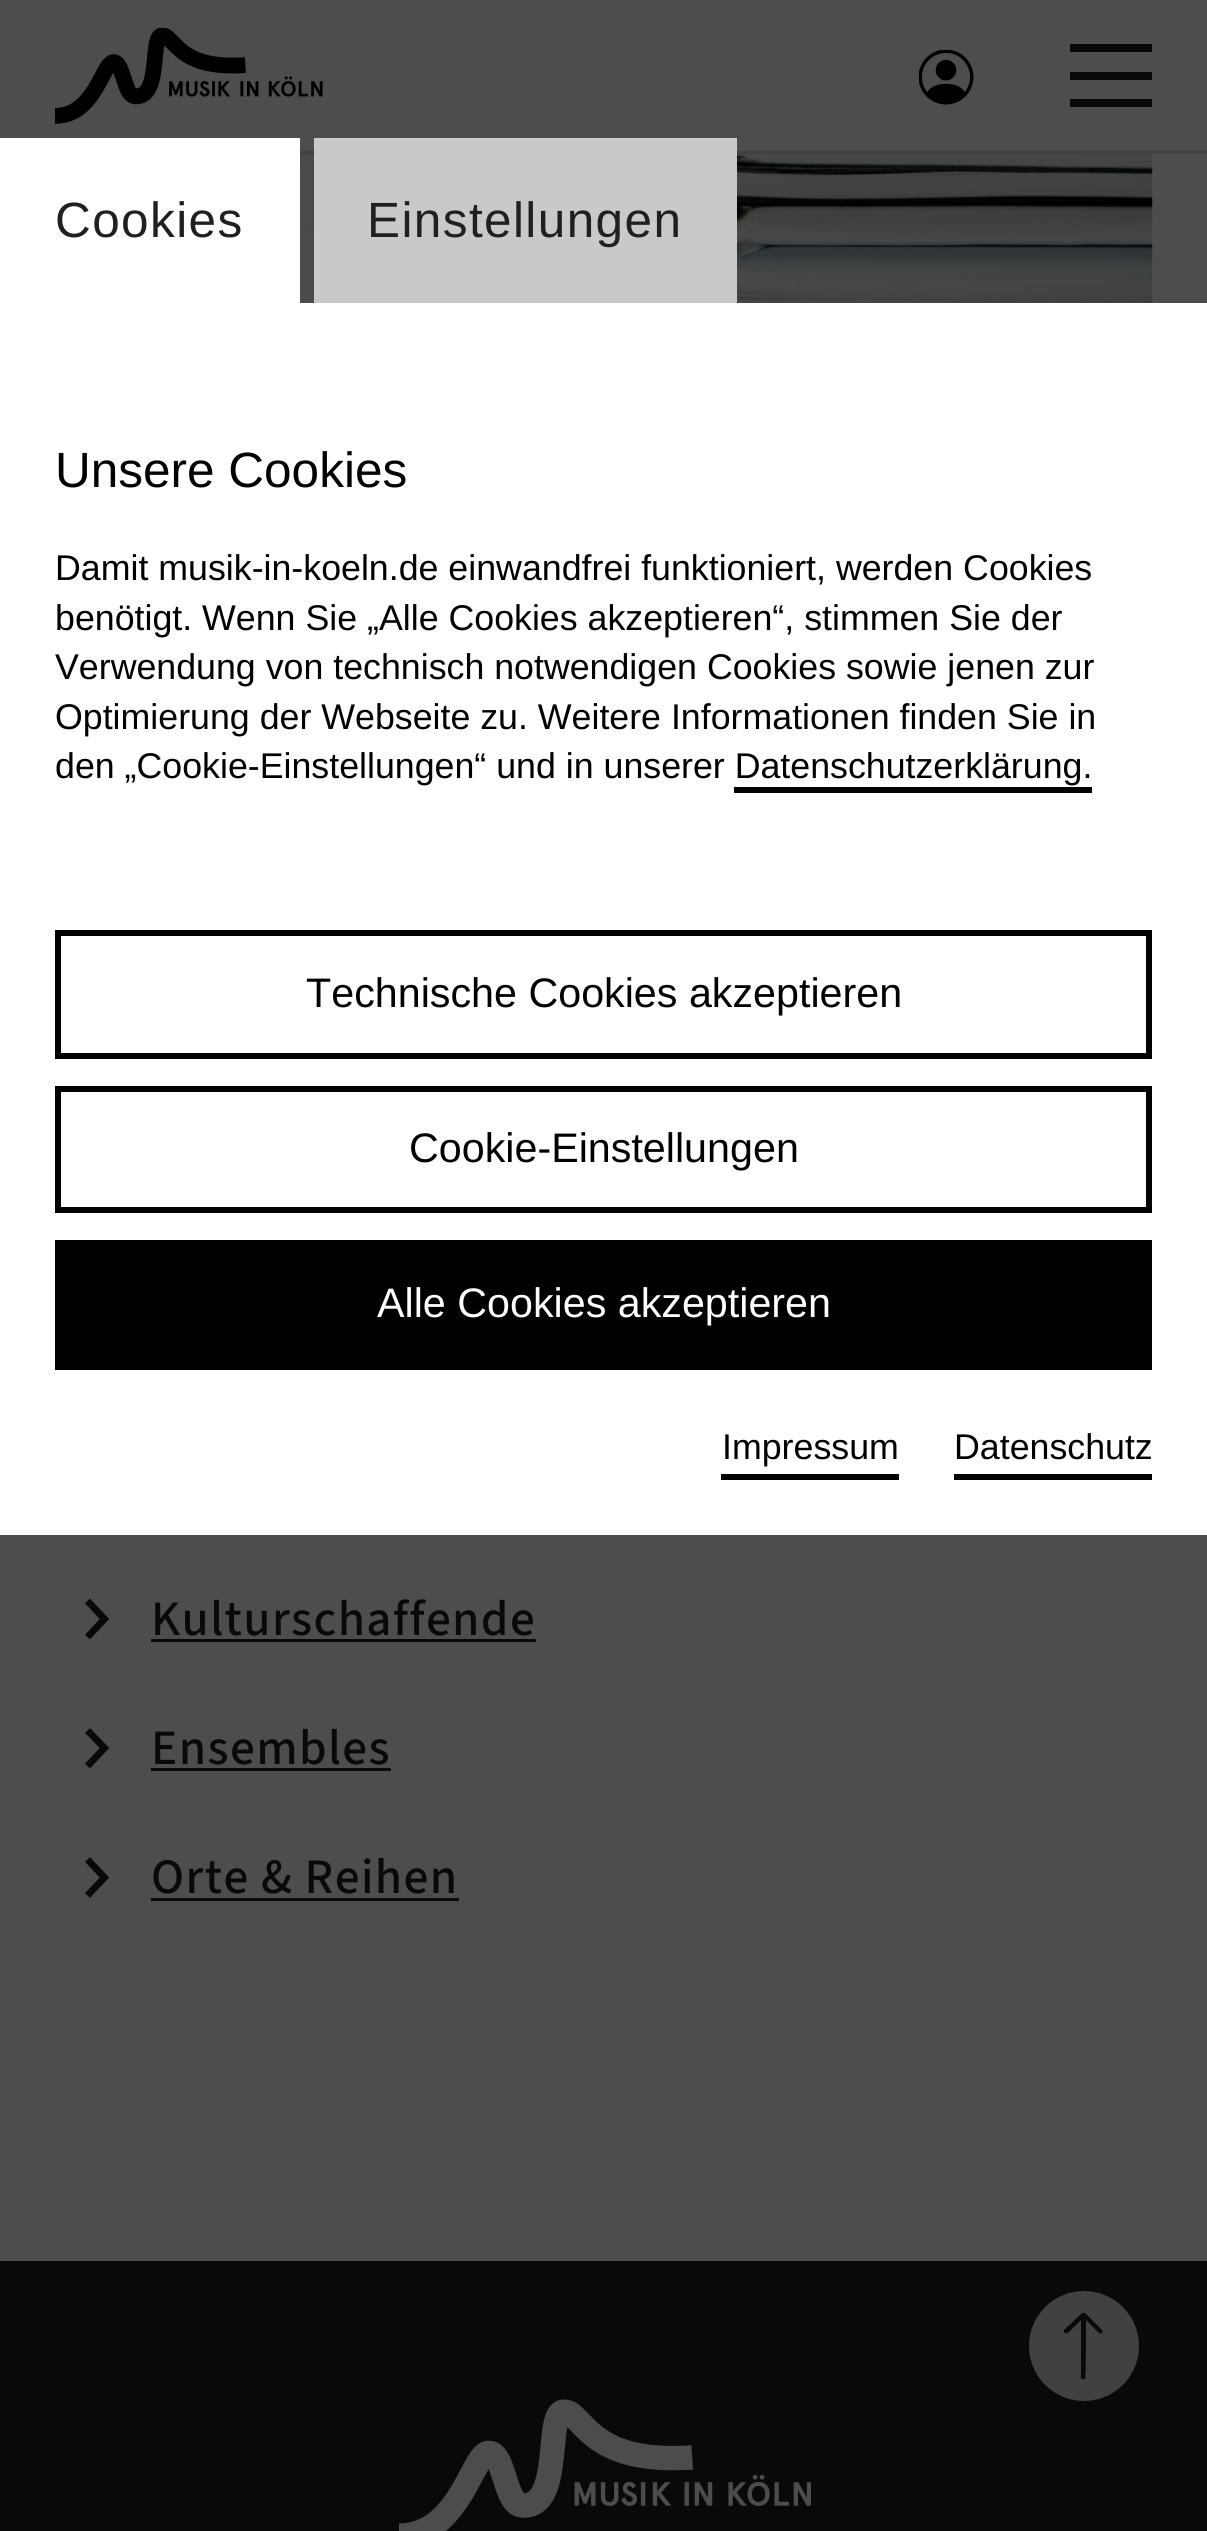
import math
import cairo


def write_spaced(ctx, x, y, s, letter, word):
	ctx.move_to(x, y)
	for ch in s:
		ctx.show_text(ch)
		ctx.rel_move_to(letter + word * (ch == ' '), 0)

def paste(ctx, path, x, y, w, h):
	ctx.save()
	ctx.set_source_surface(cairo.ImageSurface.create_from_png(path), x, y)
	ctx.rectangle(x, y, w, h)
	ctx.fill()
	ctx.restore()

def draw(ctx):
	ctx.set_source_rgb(0.302, 0.302, 0.302)
	ctx.paint()
	ctx.set_source_rgb(0.255, 0.255, 0.255)
	ctx.rectangle(300, 151, 907, 3)
	ctx.fill()
	paste(ctx, 'media/1.png', 55, 28, 268, 96)
	paste(ctx, 'media/2.png', 919, 50, 55, 55)
	ctx.set_source_rgb(0.039, 0.039, 0.039)
	ctx.rectangle(1070, 44, 82, 8)
	ctx.rectangle(1070, 72, 82, 8)
	ctx.rectangle(1070, 99, 82, 8)
	ctx.fill()
	ctx.set_source_rgb(1, 1, 1)
	ctx.rectangle(0, 138, 300, 165)
	ctx.fill()
	ctx.select_font_face('Liberation Sans')
	ctx.set_font_size(49.5)
	ctx.set_source_rgb(0.125, 0.125, 0.125)
	write_spaced(ctx, 55, 237, 'Cookies', 1.4, 0)
	paste(ctx, 'media/3.png', 300, 154, 853, 149)
	ctx.set_source_rgb(0.788, 0.788, 0.788)
	ctx.rectangle(314, 138, 423, 165)
	ctx.fill()
	ctx.set_source_rgb(0.125, 0.125, 0.125)
	write_spaced(ctx, 367, 237, 'Einstellungen', 1.4, 0)
	ctx.set_source_rgb(1, 1, 1)
	ctx.rectangle(0, 303, 1207, 1232)
	ctx.fill()
	ctx.set_source_rgb(0, 0, 0)
	ctx.move_to(55, 487)
	ctx.show_text('Unsere Cookies')
	ctx.set_font_size(35.75)
	for x, y, s in [
		(55, 580, 'Damit musik-in-koeln.de einwandfrei funktioniert, werden Cookies'),
		(55, 630, 'benötigt. Wenn Sie „Alle Cookies akzeptieren“, stimmen Sie der'),
		(55, 679, 'Verwendung von technisch notwendigen Cookies sowie jenen zur'),
		(55, 729, 'Optimierung der Webseite zu. Weitere Informationen finden Sie in'),
		(55, 778, 'den „Cookie-Einstellungen“ und in unserer Datenschutzerklärung.'),
	]:
		ctx.move_to(x, y)
		ctx.show_text(s)
	ctx.rectangle(734, 787, 358, 6)
	ctx.fill()
	ctx.rectangle(58, 933, 1091, 123)
	ctx.set_line_width(6)
	ctx.stroke()
	ctx.set_font_size(41.25)
	ctx.move_to(306, 1007)
	ctx.show_text('Technische Cookies akzeptieren')
	ctx.rectangle(58, 1089, 1091, 121)
	ctx.stroke()
	ctx.move_to(409, 1162)
	ctx.show_text('Cookie-Einstellungen')
	ctx.rectangle(55, 1240, 1097, 130)
	ctx.fill()
	ctx.set_source_rgb(1, 1, 1)
	ctx.move_to(377, 1317)
	ctx.show_text('Alle Cookies akzeptieren')
	ctx.set_source_rgb(0, 0, 0)
	ctx.rectangle(721, 1474, 178, 6)
	ctx.fill()
	ctx.set_font_size(35.75)
	ctx.move_to(722, 1459)
	ctx.show_text('Impressum')
	ctx.rectangle(954, 1474, 198, 6)
	ctx.fill()
	ctx.move_to(954, 1459)
	ctx.show_text('Datenschutz')
	ctx.new_path()
	ctx.move_to(87.5, 1601)
	ctx.line_to(104.5, 1619)
	ctx.line_to(87.5, 1637)
	ctx.set_source_rgb(0.039, 0.039, 0.039)
	ctx.set_line_width(6.9)
	ctx.stroke()
	ctx.select_font_face('Source Sans 3 Medium')
	ctx.set_font_size(49.5)
	write_spaced(ctx, 151, 1635, 'Kulturschaffende', 1.4, 0)
	ctx.rectangle(151, 1639, 385, 3)
	ctx.fill()
	ctx.new_path()
	ctx.move_to(87.5, 1730.5)
	ctx.line_to(104.5, 1748)
	ctx.line_to(87.5, 1766)
	ctx.stroke()
	write_spaced(ctx, 151, 1764, 'Ensembles', 1.4, 0)
	ctx.rectangle(151, 1768, 240, 3)
	ctx.fill()
	ctx.new_path()
	ctx.move_to(87.5, 1859.5)
	ctx.line_to(104.5, 1877.5)
	ctx.line_to(87.5, 1895.5)
	ctx.stroke()
	write_spaced(ctx, 151, 1893, 'Orte & Reihen', 1.4, 0)
	ctx.rectangle(151, 1898, 308, 3)
	ctx.fill()
	ctx.rectangle(0, 2261, 1207, 270)
	ctx.fill()
	ctx.set_source_rgb(0.255, 0.255, 0.255)
	ctx.arc(1084, 2346, 55, 0, 2 * math.pi)
	ctx.fill()
	ctx.save()
	ctx.rectangle(1064, 2313, 39, 66)
	ctx.clip()
	ctx.set_source_rgb(0.039, 0.039, 0.039)
	ctx.new_path()
	ctx.move_to(1085, 2313)
	ctx.line_to(1102, 2330)
	ctx.curve_to(1103, 2331, 1103, 2332, 1102, 2333)
	ctx.curve_to(1101, 2334, 1100, 2334, 1099, 2333)
	ctx.line_to(1086, 2320)
	ctx.curve_to(1086, 2326, 1086, 2379, 1085, 2380)
	ctx.curve_to(1084, 2381, 1082, 2380, 1081, 2379)
	ctx.line_to(1081, 2320)
	ctx.line_to(1072, 2329)
	ctx.curve_to(1072, 2329, 1066, 2336, 1064, 2332)
	ctx.line_to(1064, 2330)
	ctx.line_to(1079, 2316)
	ctx.curve_to(1080, 2315, 1083, 2311, 1085, 2313)
	ctx.close_path()
	ctx.fill()
	ctx.restore()
	paste(ctx, 'media/4.png', 399, 2399, 412, 132)


surface = cairo.ImageSurface(cairo.FORMAT_RGB24, 1207, 2531)
ctx = cairo.Context(surface)
options = cairo.FontOptions()
options.set_hint_metrics(cairo.HINT_METRICS_OFF)
options.set_hint_style(cairo.HINT_STYLE_NONE)
ctx.set_font_options(options)
ctx.set_miter_limit(4)
draw(ctx)
surface.write_to_png('image.png')
